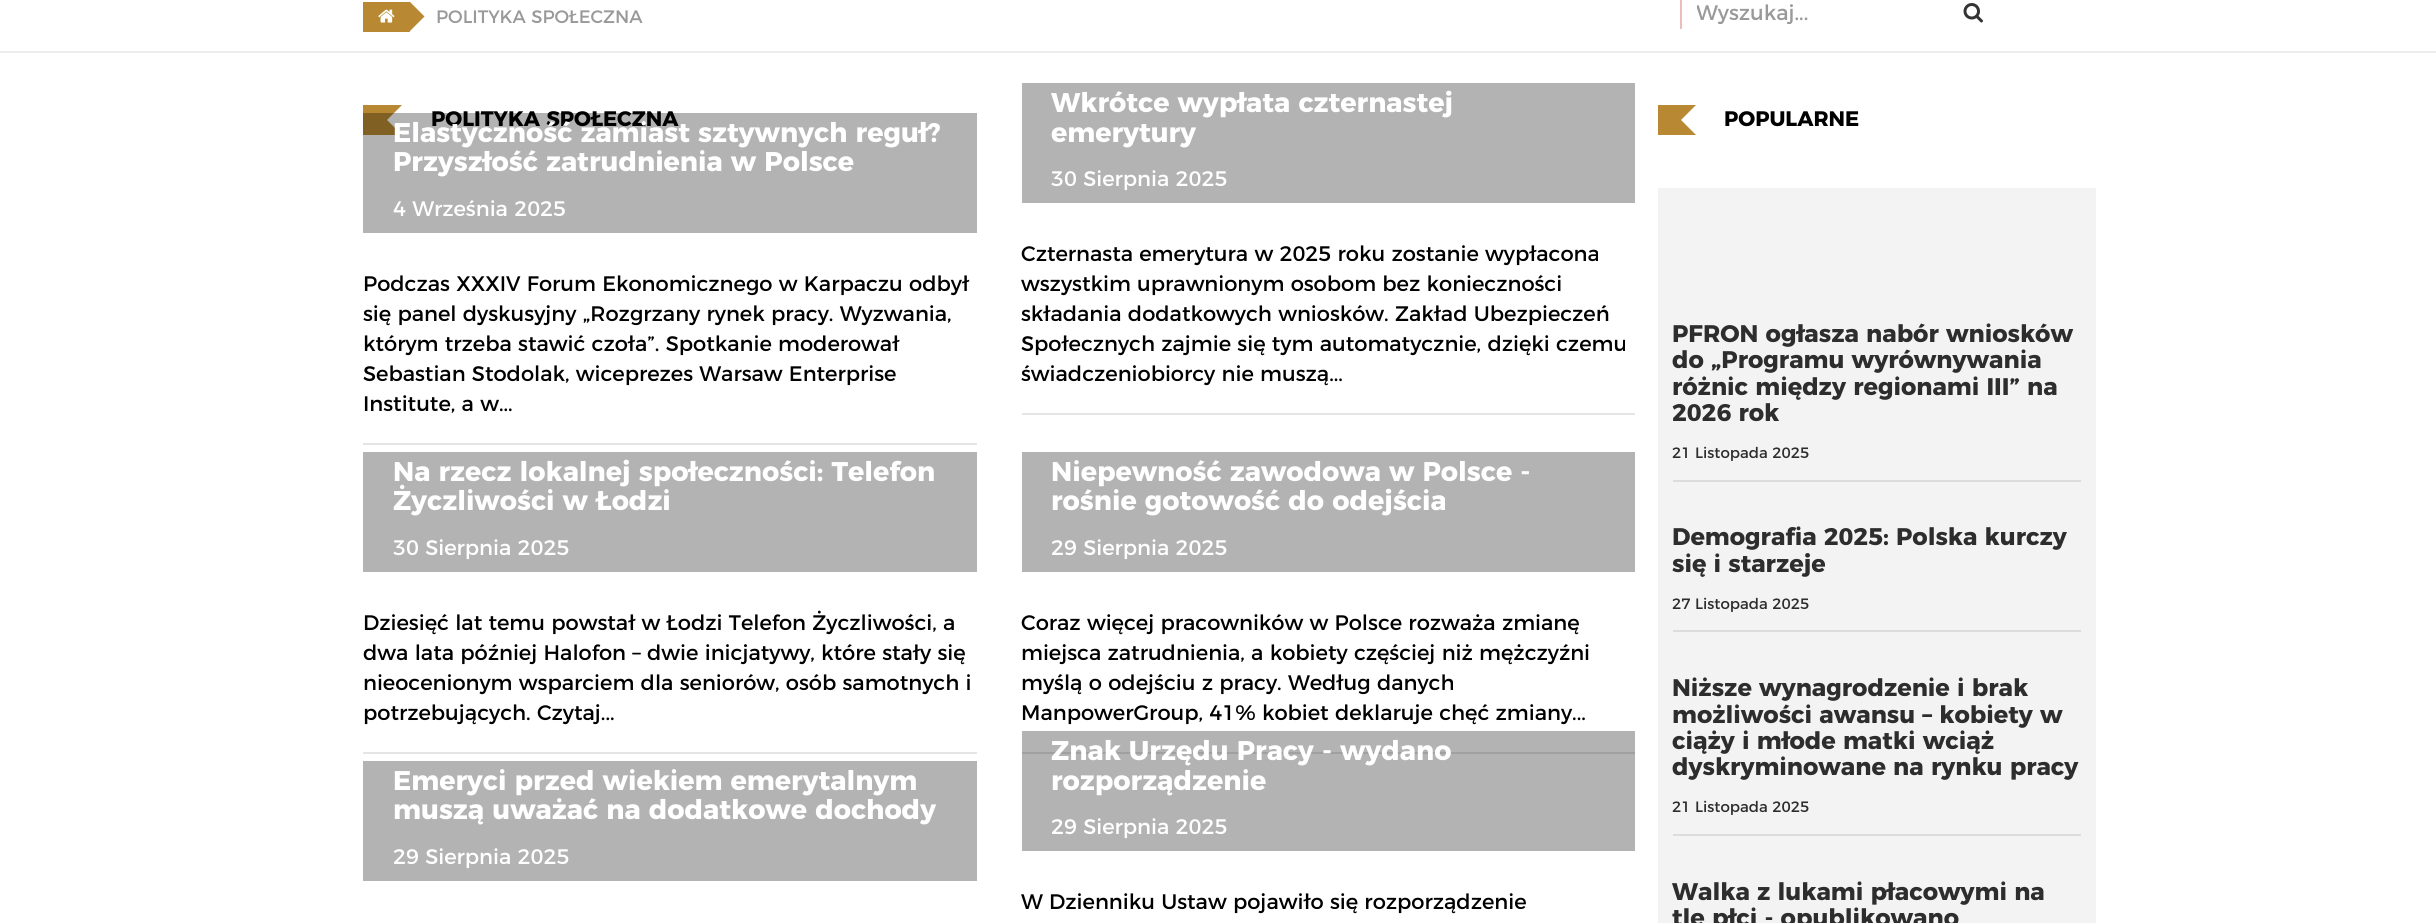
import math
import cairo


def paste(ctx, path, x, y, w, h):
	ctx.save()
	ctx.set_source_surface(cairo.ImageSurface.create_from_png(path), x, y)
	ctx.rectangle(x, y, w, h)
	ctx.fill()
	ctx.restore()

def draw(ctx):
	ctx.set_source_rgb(1, 1, 1)
	ctx.paint()
	ctx.set_source_rgb(0.702, 0.702, 0.702)
	ctx.rectangle(1022, 731, 613, 120)
	ctx.fill()
	ctx.set_source_rgb(0.929, 0.929, 0.929)
	ctx.rectangle(0, 51, 2436, 2)
	ctx.fill()
	ctx.set_source_rgb(0.722, 0.537, 0.196)
	ctx.rectangle(363, 2, 47, 30)
	ctx.fill()
	paste(ctx, 'media/1.png', 378, 9, 17, 14)
	ctx.set_source_rgb(1, 1, 1)
	ctx.new_path()
	ctx.move_to(424.5, 31.5)
	ctx.line_to(409.5, 31.5)
	ctx.line_to(424.5, 16.5)
	ctx.close_path()
	ctx.fill()
	ctx.set_source_rgb(0.722, 0.537, 0.196)
	ctx.new_path()
	ctx.move_to(409.5, 31.5)
	ctx.line_to(409.5, 1.5)
	ctx.line_to(424.5, 16.5)
	ctx.close_path()
	ctx.fill()
	ctx.select_font_face('Montserrat')
	ctx.set_font_size(18)
	ctx.set_source_rgb(0.6, 0.6, 0.6)
	ctx.move_to(436, 23)
	ctx.show_text('POLITYKA SPOŁECZNA')
	ctx.set_source_rgb(0.929, 0.741, 0.741)
	ctx.rectangle(1680, 0, 2, 29)
	ctx.fill()
	ctx.save()
	ctx.rectangle(1697, 3, 222, 21)
	ctx.clip()
	ctx.set_font_size(21)
	ctx.set_source_rgb(0.6, 0.6, 0.6)
	ctx.move_to(1696, 20)
	ctx.show_text('Wyszukaj...')
	ctx.restore()
	paste(ctx, 'media/2.png', 1963, 3, 20, 20)
	ctx.set_source_rgb(0.722, 0.537, 0.196)
	ctx.rectangle(363, 105, 39, 30)
	ctx.fill()
	ctx.set_source_rgb(1, 1, 1)
	ctx.new_path()
	ctx.move_to(387, 120)
	ctx.line_to(408, 99)
	ctx.line_to(429, 120)
	ctx.line_to(408, 141)
	ctx.close_path()
	ctx.fill()
	ctx.select_font_face('Montserrat', cairo.FONT_SLANT_NORMAL, cairo.FONT_WEIGHT_BOLD)
	ctx.set_font_size(21)
	ctx.set_source_rgb(0, 0, 0)
	ctx.move_to(431, 126)
	ctx.show_text('POLITYKA SPOŁECZNA')
	ctx.set_source_rgba(0, 0, 0, 0.3)
	ctx.rectangle(363, 113, 614, 120)
	ctx.fill()
	ctx.set_font_size(27)
	ctx.set_source_rgb(1, 1, 1)
	ctx.move_to(393, 142)
	ctx.show_text('Elastyczność zamiast sztywnych reguł?')
	ctx.move_to(393, 171)
	ctx.show_text('Przyszłość zatrudnienia w Polsce')
	ctx.select_font_face('Montserrat')
	ctx.set_font_size(21)
	ctx.move_to(393, 216)
	ctx.show_text('4 Września 2025')
	ctx.set_source_rgb(0.898, 0.898, 0.898)
	ctx.rectangle(363, 443, 614, 2)
	ctx.fill()
	ctx.set_source_rgb(0, 0, 0)
	for x, y, s in [
		(363, 291, 'Podczas XXXIV Forum Ekonomicznego w Karpaczu odbył'),
		(363, 321, 'się panel dyskusyjny „Rozgrzany rynek pracy. Wyzwania,'),
		(363, 351, 'którym trzeba stawić czoła”. Spotkanie moderował'),
		(363, 381, 'Sebastian Stodolak, wiceprezes Warsaw Enterprise'),
		(363, 411, 'Institute, a w...'),
	]:
		ctx.move_to(x, y)
		ctx.show_text(s)
	ctx.set_source_rgb(0.702, 0.702, 0.702)
	ctx.rectangle(1022, 83, 613, 120)
	ctx.fill()
	ctx.select_font_face('Montserrat', cairo.FONT_SLANT_NORMAL, cairo.FONT_WEIGHT_BOLD)
	ctx.set_font_size(27)
	ctx.set_source_rgb(1, 1, 1)
	ctx.move_to(1051, 112)
	ctx.show_text('Wkrótce wypłata czternastej')
	ctx.move_to(1051, 142)
	ctx.show_text('emerytury')
	ctx.select_font_face('Montserrat')
	ctx.set_font_size(21)
	ctx.move_to(1051, 186)
	ctx.show_text('30 Sierpnia 2025')
	ctx.set_source_rgb(0.898, 0.898, 0.898)
	ctx.rectangle(1022, 413, 613, 2)
	ctx.fill()
	ctx.set_source_rgb(0, 0, 0)
	for x, y, s in [
		(1021, 261, 'Czternasta emerytura w 2025 roku zostanie wypłacona'),
		(1021, 291, 'wszystkim uprawnionym osobom bez konieczności'),
		(1021, 321, 'składania dodatkowych wniosków. Zakład Ubezpieczeń'),
		(1021, 351, 'Społecznych zajmie się tym automatycznie, dzięki czemu'),
		(1021, 381, 'świadczeniobiorcy nie muszą...'),
	]:
		ctx.move_to(x, y)
		ctx.show_text(s)
	ctx.set_source_rgb(0.702, 0.702, 0.702)
	ctx.rectangle(363, 452, 614, 120)
	ctx.fill()
	ctx.select_font_face('Montserrat', cairo.FONT_SLANT_NORMAL, cairo.FONT_WEIGHT_BOLD)
	ctx.set_font_size(27)
	ctx.set_source_rgb(1, 1, 1)
	ctx.move_to(393, 481)
	ctx.show_text('Na rzecz lokalnej społeczności: Telefon')
	ctx.move_to(393, 510)
	ctx.show_text('Życzliwości w Łodzi')
	ctx.select_font_face('Montserrat')
	ctx.set_font_size(21)
	ctx.move_to(393, 555)
	ctx.show_text('30 Sierpnia 2025')
	ctx.set_source_rgb(0.898, 0.898, 0.898)
	ctx.rectangle(363, 752, 614, 2)
	ctx.fill()
	ctx.set_source_rgb(0, 0, 0)
	for x, y, s in [
		(363, 630, 'Dziesięć lat temu powstał w Łodzi Telefon Życzliwości, a'),
		(363, 660, 'dwa lata później Halofon – dwie inicjatywy, które stały się'),
		(363, 690, 'nieocenionym wsparciem dla seniorów, osób samotnych i'),
		(363, 720, 'potrzebujących. Czytaj...'),
	]:
		ctx.move_to(x, y)
		ctx.show_text(s)
	ctx.set_source_rgb(0.702, 0.702, 0.702)
	ctx.rectangle(1022, 452, 613, 120)
	ctx.fill()
	ctx.select_font_face('Montserrat', cairo.FONT_SLANT_NORMAL, cairo.FONT_WEIGHT_BOLD)
	ctx.set_font_size(27)
	ctx.set_source_rgb(1, 1, 1)
	ctx.move_to(1051, 481)
	ctx.show_text('Niepewność zawodowa w Polsce -')
	ctx.move_to(1051, 510)
	ctx.show_text('rośnie gotowość do odejścia')
	ctx.select_font_face('Montserrat')
	ctx.set_font_size(21)
	ctx.move_to(1051, 555)
	ctx.show_text('29 Sierpnia 2025')
	ctx.set_source_rgb(0.627, 0.627, 0.627)
	ctx.rectangle(1022, 752, 613, 2)
	ctx.fill()
	ctx.set_source_rgb(0, 0, 0)
	for x, y, s in [
		(1021, 630, 'Coraz więcej pracowników w Polsce rozważa zmianę'),
		(1021, 660, 'miejsca zatrudnienia, a kobiety częściej niż mężczyźni'),
		(1021, 690, 'myślą o odejściu z pracy. Według danych'),
		(1021, 720, 'ManpowerGroup, 41% kobiet deklaruje chęć zmiany...'),
	]:
		ctx.move_to(x, y)
		ctx.show_text(s)
	ctx.set_source_rgb(0.702, 0.702, 0.702)
	ctx.rectangle(363, 761, 614, 120)
	ctx.fill()
	ctx.select_font_face('Montserrat', cairo.FONT_SLANT_NORMAL, cairo.FONT_WEIGHT_BOLD)
	ctx.set_font_size(27)
	ctx.set_source_rgb(1, 1, 1)
	ctx.move_to(393, 790)
	ctx.show_text('Emeryci przed wiekiem emerytalnym')
	ctx.move_to(393, 819)
	ctx.show_text('muszą uważać na dodatkowe dochody')
	ctx.select_font_face('Montserrat')
	ctx.set_font_size(21)
	ctx.move_to(393, 864)
	ctx.show_text('29 Sierpnia 2025')
	ctx.select_font_face('Montserrat', cairo.FONT_SLANT_NORMAL, cairo.FONT_WEIGHT_BOLD)
	ctx.set_font_size(27)
	ctx.move_to(1051, 760)
	ctx.show_text('Znak Urzędu Pracy - wydano')
	ctx.move_to(1051, 790)
	ctx.show_text('rozporządzenie')
	ctx.select_font_face('Montserrat')
	ctx.set_font_size(21)
	ctx.move_to(1051, 834)
	ctx.show_text('29 Sierpnia 2025')
	ctx.set_source_rgb(0, 0, 0)
	ctx.move_to(1021, 909)
	ctx.show_text('W Dzienniku Ustaw pojawiło się rozporządzenie')
	ctx.set_source_rgb(0.722, 0.537, 0.196)
	ctx.rectangle(1658, 105, 38, 30)
	ctx.fill()
	ctx.set_source_rgb(1, 1, 1)
	ctx.new_path()
	ctx.move_to(1681, 120)
	ctx.line_to(1702, 99)
	ctx.line_to(1723, 120)
	ctx.line_to(1702, 141)
	ctx.close_path()
	ctx.fill()
	ctx.select_font_face('Montserrat', cairo.FONT_SLANT_NORMAL, cairo.FONT_WEIGHT_BOLD)
	ctx.set_source_rgb(0, 0, 0)
	ctx.move_to(1724, 126)
	ctx.show_text('POPULARNE')
	ctx.set_source_rgb(0.953, 0.953, 0.953)
	ctx.rectangle(1658, 188, 438, 735)
	ctx.fill()
	ctx.set_source_rgb(0.863, 0.863, 0.863)
	ctx.rectangle(1673, 480, 408, 2)
	ctx.fill()
	ctx.set_font_size(24)
	ctx.set_source_rgb(0.18, 0.176, 0.176)
	for x, y, s in [
		(1672, 342, 'PFRON ogłasza nabór wniosków'),
		(1672, 368, 'do „Programu wyrównywania'),
		(1672, 395, 'różnic między regionami III” na'),
		(1672, 421, '2026 rok'),
	]:
		ctx.move_to(x, y)
		ctx.show_text(s)
	ctx.select_font_face('Montserrat')
	ctx.set_font_size(15)
	ctx.move_to(1672, 458)
	ctx.show_text('21 Listopada 2025')
	ctx.set_source_rgb(0.863, 0.863, 0.863)
	ctx.rectangle(1673, 630, 408, 2)
	ctx.fill()
	ctx.select_font_face('Montserrat', cairo.FONT_SLANT_NORMAL, cairo.FONT_WEIGHT_BOLD)
	ctx.set_font_size(24)
	ctx.set_source_rgb(0.18, 0.176, 0.176)
	ctx.move_to(1672, 545)
	ctx.show_text('Demografia 2025: Polska kurczy')
	ctx.move_to(1672, 572)
	ctx.show_text('się i starzeje')
	ctx.select_font_face('Montserrat')
	ctx.set_font_size(15)
	ctx.move_to(1672, 609)
	ctx.show_text('27 Listopada 2025')
	ctx.set_source_rgb(0.863, 0.863, 0.863)
	ctx.rectangle(1673, 834, 408, 2)
	ctx.fill()
	ctx.select_font_face('Montserrat', cairo.FONT_SLANT_NORMAL, cairo.FONT_WEIGHT_BOLD)
	ctx.set_font_size(24)
	ctx.set_source_rgb(0.18, 0.176, 0.176)
	for x, y, s in [
		(1672, 696, 'Niższe wynagrodzenie i brak'),
		(1672, 723, 'możliwości awansu – kobiety w'),
		(1672, 749, 'ciąży i młode matki wciąż'),
		(1672, 775, 'dyskryminowane na rynku pracy'),
	]:
		ctx.move_to(x, y)
		ctx.show_text(s)
	ctx.select_font_face('Montserrat')
	ctx.set_font_size(15)
	ctx.move_to(1672, 812)
	ctx.show_text('21 Listopada 2025')
	ctx.select_font_face('Montserrat', cairo.FONT_SLANT_NORMAL, cairo.FONT_WEIGHT_BOLD)
	ctx.set_font_size(24)
	ctx.move_to(1672, 900)
	ctx.show_text('Walka z lukami płacowymi na')
	ctx.move_to(1672, 926)
	ctx.show_text('tle płci - opublikowano')


surface = cairo.ImageSurface(cairo.FORMAT_RGB24, 2436, 923)
ctx = cairo.Context(surface)
options = cairo.FontOptions()
options.set_hint_metrics(cairo.HINT_METRICS_OFF)
options.set_hint_style(cairo.HINT_STYLE_NONE)
ctx.set_font_options(options)
ctx.set_miter_limit(4)
draw(ctx)
surface.write_to_png('image.png')
